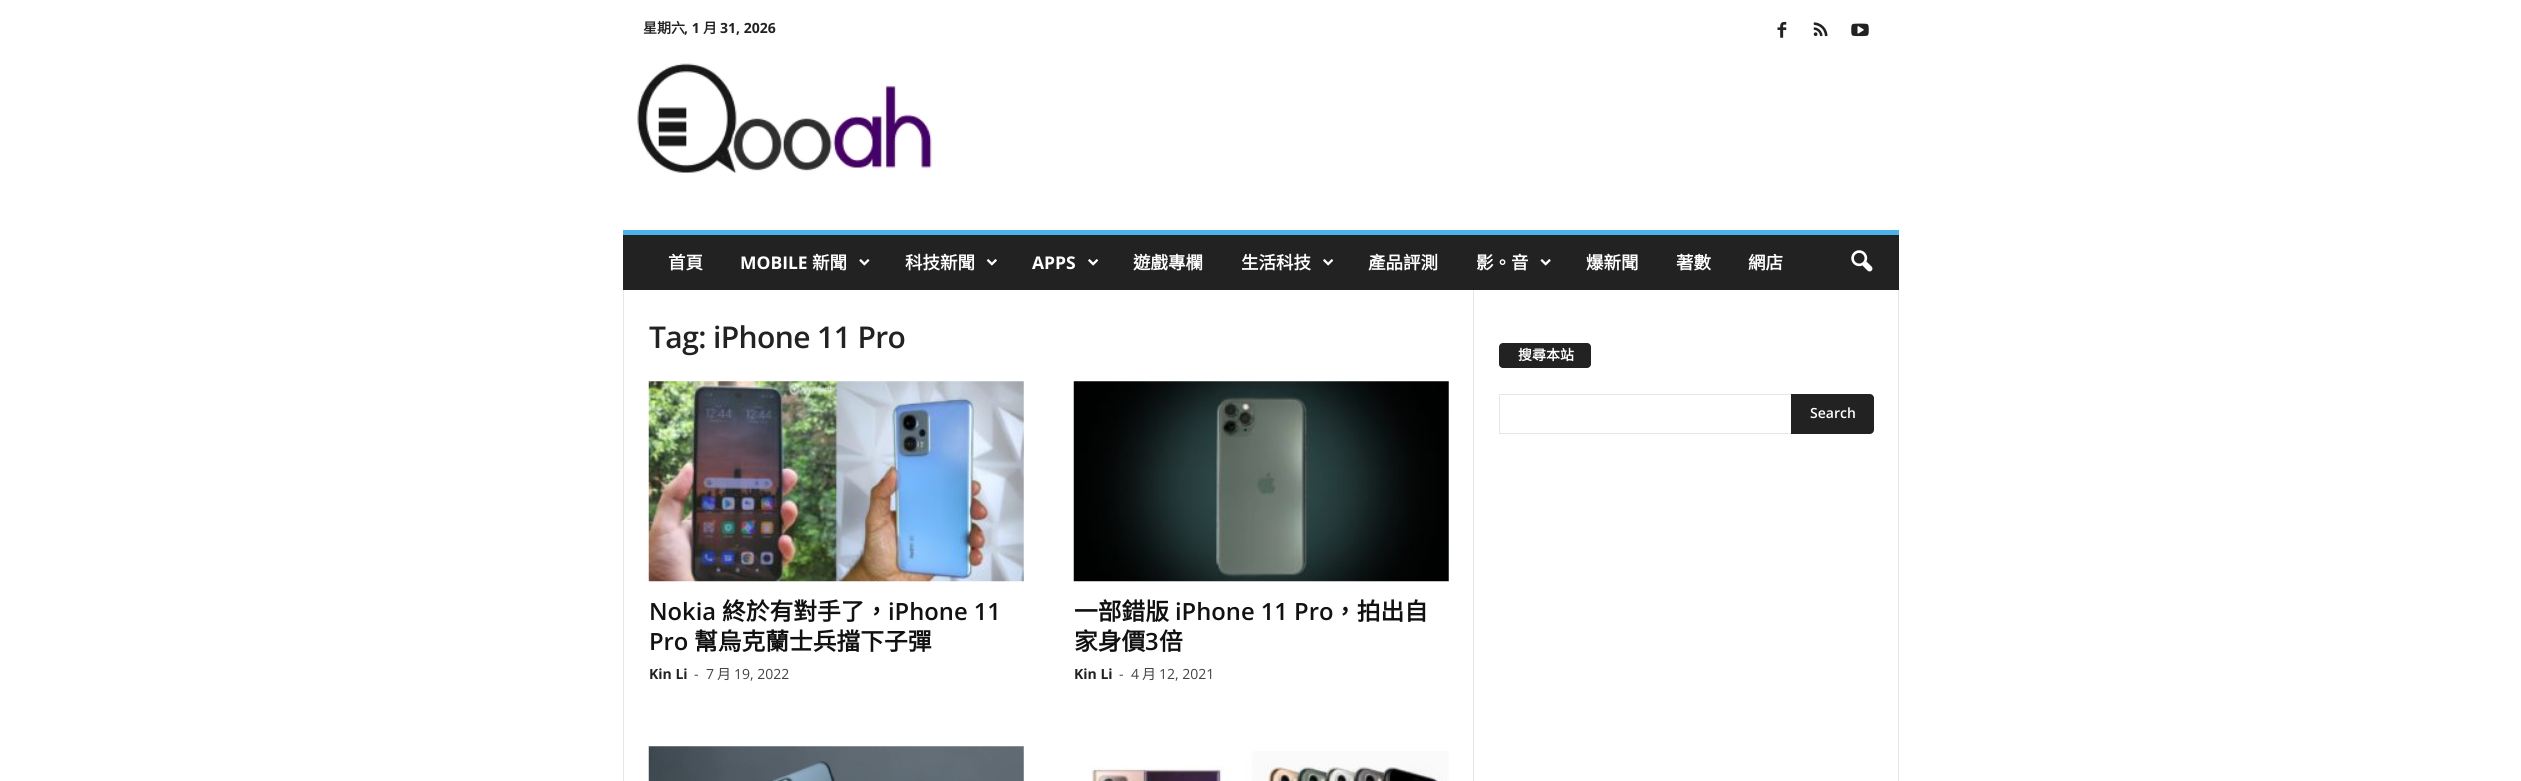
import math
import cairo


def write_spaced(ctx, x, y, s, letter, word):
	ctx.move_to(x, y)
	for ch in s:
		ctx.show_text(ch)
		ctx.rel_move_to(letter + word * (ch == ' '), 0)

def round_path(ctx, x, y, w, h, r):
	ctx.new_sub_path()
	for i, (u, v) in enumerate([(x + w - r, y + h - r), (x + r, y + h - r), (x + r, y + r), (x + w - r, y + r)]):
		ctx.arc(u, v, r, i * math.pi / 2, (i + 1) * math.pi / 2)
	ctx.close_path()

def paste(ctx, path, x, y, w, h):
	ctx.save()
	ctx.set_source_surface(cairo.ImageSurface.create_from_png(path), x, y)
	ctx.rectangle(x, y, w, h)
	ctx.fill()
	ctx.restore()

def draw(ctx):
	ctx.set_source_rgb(1, 1, 1)
	ctx.paint()
	ctx.select_font_face('Noto Sans CJK TC', cairo.FONT_SLANT_NORMAL, cairo.FONT_WEIGHT_BOLD)
	ctx.set_font_size(14)
	ctx.set_source_rgb(0.133, 0.133, 0.133)
	ctx.move_to(643, 33)
	ctx.show_text('星期六')
	ctx.select_font_face('Open Sans', cairo.FONT_SLANT_NORMAL, cairo.FONT_WEIGHT_BOLD)
	ctx.move_to(684, 33)
	ctx.show_text(', 1')
	ctx.select_font_face('Noto Sans CJK TC', cairo.FONT_SLANT_NORMAL, cairo.FONT_WEIGHT_BOLD)
	ctx.move_to(703, 33)
	ctx.show_text('月')
	ctx.select_font_face('Open Sans', cairo.FONT_SLANT_NORMAL, cairo.FONT_WEIGHT_BOLD)
	ctx.move_to(720, 33)
	ctx.show_text('31, 2026')
	paste(ctx, 'media/1.png', 1777, 21, 10, 17)
	paste(ctx, 'media/2.png', 1813, 22, 15, 15)
	paste(ctx, 'media/3.png', 1851, 23, 18, 14)
	paste(ctx, 'media/4.png', 637, 63, 296, 110)
	ctx.rectangle(623, 235, 1276, 55)
	ctx.fill()
	ctx.set_source_rgb(0.302, 0.698, 0.925)
	ctx.rectangle(623, 230, 1276, 5)
	ctx.fill()
	ctx.select_font_face('Noto Sans CJK TC', cairo.FONT_SLANT_NORMAL, cairo.FONT_WEIGHT_BOLD)
	ctx.set_font_size(17.5)
	ctx.set_source_rgb(1, 1, 1)
	ctx.move_to(668, 269)
	ctx.show_text('首頁')
	ctx.select_font_face('Open Sans', cairo.FONT_SLANT_NORMAL, cairo.FONT_WEIGHT_BOLD)
	ctx.move_to(740, 269)
	ctx.show_text('MOBILE')
	ctx.select_font_face('Noto Sans CJK TC', cairo.FONT_SLANT_NORMAL, cairo.FONT_WEIGHT_BOLD)
	ctx.move_to(812, 269)
	ctx.show_text('新聞')
	paste(ctx, 'media/5.png', 859, 259, 11, 7)
	ctx.move_to(905, 269)
	ctx.show_text('科技新聞')
	paste(ctx, 'media/6.png', 986, 259, 11, 7)
	ctx.select_font_face('Open Sans', cairo.FONT_SLANT_NORMAL, cairo.FONT_WEIGHT_BOLD)
	ctx.move_to(1032, 269)
	ctx.show_text('APPS')
	paste(ctx, 'media/7.png', 1088, 259, 11, 7)
	ctx.select_font_face('Noto Sans CJK TC', cairo.FONT_SLANT_NORMAL, cairo.FONT_WEIGHT_BOLD)
	ctx.move_to(1133, 269)
	ctx.show_text('遊戲專欄')
	ctx.move_to(1241, 269)
	ctx.show_text('生活科技')
	paste(ctx, 'media/7.png', 1323, 259, 11, 7)
	ctx.move_to(1368, 269)
	ctx.show_text('產品評測')
	ctx.move_to(1476, 269)
	ctx.show_text('影。音')
	paste(ctx, 'media/8.png', 1540, 259, 11, 7)
	for x, y, s in [
		(1586, 269, '爆新聞'),
		(1676, 269, '著數'),
		(1748, 269, '網店'),
	]:
		ctx.move_to(x, y)
		ctx.show_text(s)
	paste(ctx, 'media/9.png', 1851, 250, 22, 22)
	ctx.set_source_rgb(0.902, 0.902, 0.902)
	ctx.rectangle(623, 290, 1, 491)
	ctx.fill()
	ctx.select_font_face('Open Sans SemiBold')
	ctx.set_font_size(30)
	ctx.set_source_rgb(0.133, 0.133, 0.133)
	write_spaced(ctx, 649, 348, 'Tag: iPhone 11 Pro', -0.6, 0)
	paste(ctx, 'media/10.png', 648, 381, 376, 201)
	ctx.set_font_size(23.75)
	ctx.set_source_rgb(0.067, 0.067, 0.067)
	ctx.move_to(649, 620)
	ctx.show_text('Nokia')
	ctx.select_font_face('Noto Sans CJK TC', cairo.FONT_SLANT_NORMAL, cairo.FONT_WEIGHT_BOLD)
	ctx.move_to(722, 620)
	ctx.show_text('終於有對手了，')
	ctx.select_font_face('Open Sans SemiBold')
	ctx.move_to(888, 620)
	ctx.show_text('iPhone 11')
	ctx.move_to(649, 650)
	ctx.show_text('Pro')
	ctx.select_font_face('Noto Sans CJK TC', cairo.FONT_SLANT_NORMAL, cairo.FONT_WEIGHT_BOLD)
	ctx.move_to(694, 650)
	ctx.show_text('幫烏克蘭士兵擋下子彈')
	ctx.select_font_face('Open Sans', cairo.FONT_SLANT_NORMAL, cairo.FONT_WEIGHT_BOLD)
	ctx.set_font_size(14)
	ctx.set_source_rgb(0.133, 0.133, 0.133)
	ctx.move_to(649, 679)
	ctx.show_text('Kin Li')
	ctx.select_font_face('Open Sans')
	ctx.set_source_rgb(0.267, 0.267, 0.267)
	ctx.move_to(694, 679)
	ctx.show_text('-')
	ctx.move_to(706, 679)
	ctx.show_text('7')
	ctx.select_font_face('Noto Sans CJK TC')
	ctx.move_to(717, 679)
	ctx.show_text('月')
	ctx.select_font_face('Open Sans')
	ctx.move_to(734, 679)
	ctx.show_text('19, 2022')
	paste(ctx, 'media/11.png', 1073, 381, 376, 201)
	ctx.select_font_face('Noto Sans CJK TC', cairo.FONT_SLANT_NORMAL, cairo.FONT_WEIGHT_BOLD)
	ctx.set_font_size(23.75)
	ctx.set_source_rgb(0.067, 0.067, 0.067)
	ctx.move_to(1074, 620)
	ctx.show_text('一部錯版')
	ctx.select_font_face('Open Sans SemiBold')
	ctx.move_to(1175, 620)
	ctx.show_text('iPhone 11 Pro')
	ctx.select_font_face('Noto Sans CJK TC', cairo.FONT_SLANT_NORMAL, cairo.FONT_WEIGHT_BOLD)
	ctx.move_to(1333, 620)
	ctx.show_text('，拍出自')
	ctx.move_to(1074, 650)
	ctx.show_text('家身價')
	ctx.select_font_face('Open Sans SemiBold')
	ctx.move_to(1145, 650)
	ctx.show_text('3')
	ctx.select_font_face('Noto Sans CJK TC', cairo.FONT_SLANT_NORMAL, cairo.FONT_WEIGHT_BOLD)
	ctx.move_to(1159, 650)
	ctx.show_text('倍')
	ctx.select_font_face('Open Sans', cairo.FONT_SLANT_NORMAL, cairo.FONT_WEIGHT_BOLD)
	ctx.set_font_size(14)
	ctx.set_source_rgb(0.133, 0.133, 0.133)
	ctx.move_to(1074, 679)
	ctx.show_text('Kin Li')
	ctx.select_font_face('Open Sans')
	ctx.set_source_rgb(0.267, 0.267, 0.267)
	ctx.move_to(1119, 679)
	ctx.show_text('-')
	ctx.move_to(1131, 679)
	ctx.show_text('4')
	ctx.select_font_face('Noto Sans CJK TC')
	ctx.move_to(1142, 679)
	ctx.show_text('月')
	ctx.select_font_face('Open Sans')
	ctx.move_to(1159, 679)
	ctx.show_text('12, 2021')
	paste(ctx, 'media/12.png', 648, 746, 376, 35)
	paste(ctx, 'media/13.png', 1089, 751, 360, 30)
	ctx.set_source_rgb(0.902, 0.902, 0.902)
	ctx.rectangle(1473, 290, 1, 491)
	ctx.fill()
	ctx.set_source_rgb(0.133, 0.133, 0.133)
	round_path(ctx, 1499, 343, 92, 25, 4)
	ctx.fill()
	ctx.select_font_face('Noto Sans CJK TC', cairo.FONT_SLANT_NORMAL, cairo.FONT_WEIGHT_BOLD)
	ctx.set_source_rgb(1, 1, 1)
	ctx.move_to(1518, 360)
	ctx.show_text('搜尋本站')
	ctx.set_source_rgb(0.902, 0.902, 0.902)
	ctx.rectangle(1499, 394, 292, 1)
	ctx.rectangle(1499, 433, 292, 1)
	ctx.rectangle(1499, 394, 1, 40)
	ctx.fill()
	ctx.set_source_rgb(0.133, 0.133, 0.133)
	ctx.new_path()
	ctx.move_to(1791, 394)
	ctx.line_to(1870, 394)
	ctx.curve_to(1872, 394, 1874, 396, 1874, 398)
	ctx.line_to(1874, 430)
	ctx.curve_to(1874, 432, 1872, 434, 1870, 434)
	ctx.line_to(1791, 434)
	ctx.close_path()
	ctx.fill()
	ctx.select_font_face('Open Sans SemiBold')
	ctx.set_source_rgb(1, 1, 1)
	ctx.move_to(1810, 418)
	ctx.show_text('Search')
	ctx.set_source_rgb(0.902, 0.902, 0.902)
	ctx.rectangle(1898, 290, 1, 491)
	ctx.fill()


surface = cairo.ImageSurface(cairo.FORMAT_RGB24, 2521, 781)
ctx = cairo.Context(surface)
options = cairo.FontOptions()
options.set_hint_metrics(cairo.HINT_METRICS_OFF)
options.set_hint_style(cairo.HINT_STYLE_NONE)
ctx.set_font_options(options)
ctx.set_miter_limit(4)
draw(ctx)
surface.write_to_png('image.png')
